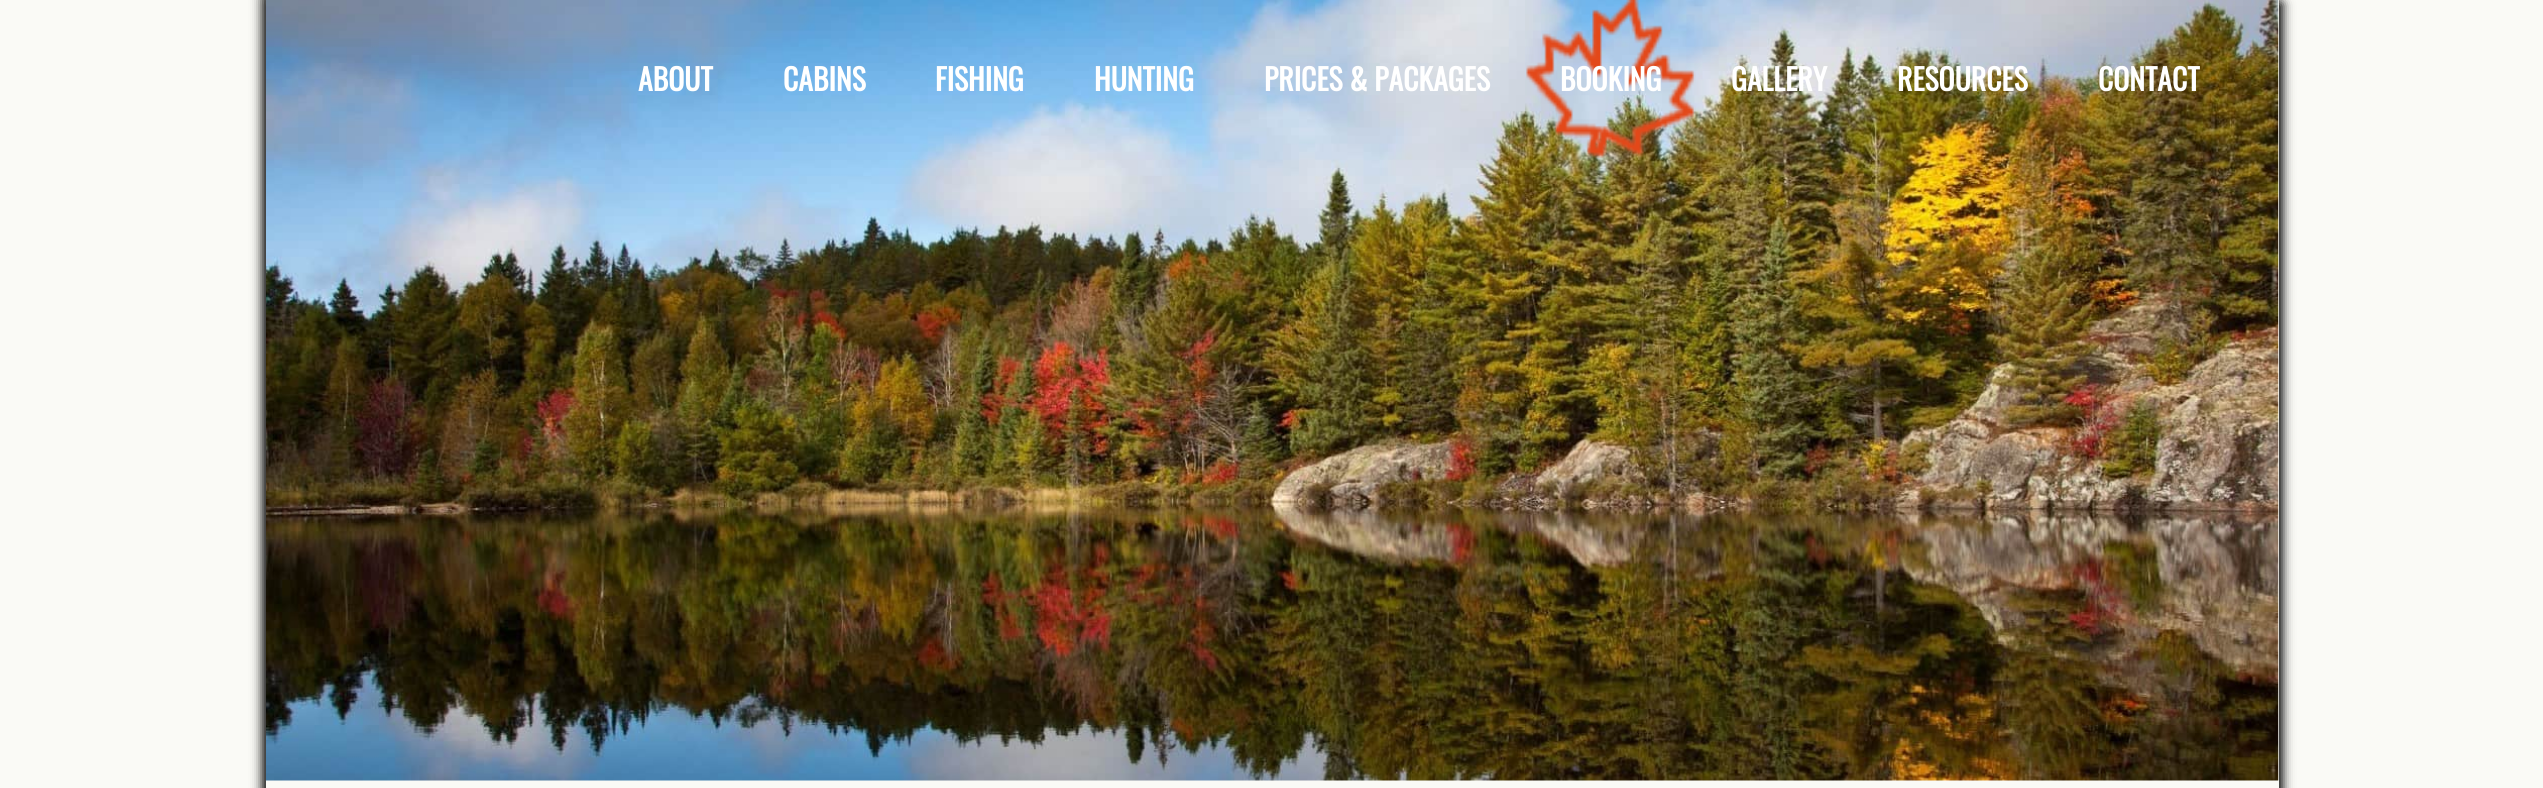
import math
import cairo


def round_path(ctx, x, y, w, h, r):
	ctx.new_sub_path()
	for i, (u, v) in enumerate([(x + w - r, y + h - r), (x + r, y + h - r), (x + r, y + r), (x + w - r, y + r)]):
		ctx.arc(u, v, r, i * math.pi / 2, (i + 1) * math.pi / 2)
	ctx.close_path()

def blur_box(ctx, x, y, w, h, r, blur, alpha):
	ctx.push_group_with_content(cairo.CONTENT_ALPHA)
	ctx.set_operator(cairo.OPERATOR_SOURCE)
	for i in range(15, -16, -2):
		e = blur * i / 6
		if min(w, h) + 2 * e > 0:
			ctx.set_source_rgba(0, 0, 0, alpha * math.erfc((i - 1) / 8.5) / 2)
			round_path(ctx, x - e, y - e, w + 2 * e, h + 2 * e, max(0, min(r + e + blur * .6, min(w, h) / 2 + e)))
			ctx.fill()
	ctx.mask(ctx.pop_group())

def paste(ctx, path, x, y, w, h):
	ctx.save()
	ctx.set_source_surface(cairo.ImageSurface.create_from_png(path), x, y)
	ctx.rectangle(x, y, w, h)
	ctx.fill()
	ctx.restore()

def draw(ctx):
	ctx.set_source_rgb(0.98, 0.98, 0.961)
	ctx.paint()
	ctx.set_source_rgb(0, 0, 0)
	blur_box(ctx, 263, -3, 2012, 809, 0, 6, 1)
	blur_box(ctx, 270, 4, 2012, 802, 0, 6, 1)
	ctx.set_source_rgb(0.98, 0.98, 0.961)
	ctx.rectangle(266, 0, 2013, 788)
	ctx.fill()
	paste(ctx, 'media/1.png', 266, 0, 2013, 781)
	ctx.select_font_face('Oswald', cairo.FONT_SLANT_NORMAL, cairo.FONT_WEIGHT_BOLD)
	ctx.set_font_size(29.75)
	ctx.set_source_rgb(1, 1, 1)
	for x, y, s in [
		(638, 91, 'ABOUT'),
		(783, 91, 'CABINS'),
		(935, 91, 'FISHING'),
		(1094, 91, 'HUNTING'),
		(1264, 91, 'PRICES & PACKAGES'),
	]:
		ctx.move_to(x, y)
		ctx.show_text(s)
	paste(ctx, 'media/2.png', 1526, 0, 170, 158)
	for x, y, s in [
		(1560, 91, 'BOOKING'),
		(1731, 91, 'GALLERY'),
		(1897, 91, 'RESOURCES'),
		(2098, 91, 'CONTACT'),
	]:
		ctx.move_to(x, y)
		ctx.show_text(s)


surface = cairo.ImageSurface(cairo.FORMAT_RGB24, 2543, 788)
ctx = cairo.Context(surface)
options = cairo.FontOptions()
options.set_hint_metrics(cairo.HINT_METRICS_OFF)
options.set_hint_style(cairo.HINT_STYLE_NONE)
ctx.set_font_options(options)
ctx.set_miter_limit(4)
draw(ctx)
surface.write_to_png('image.png')
